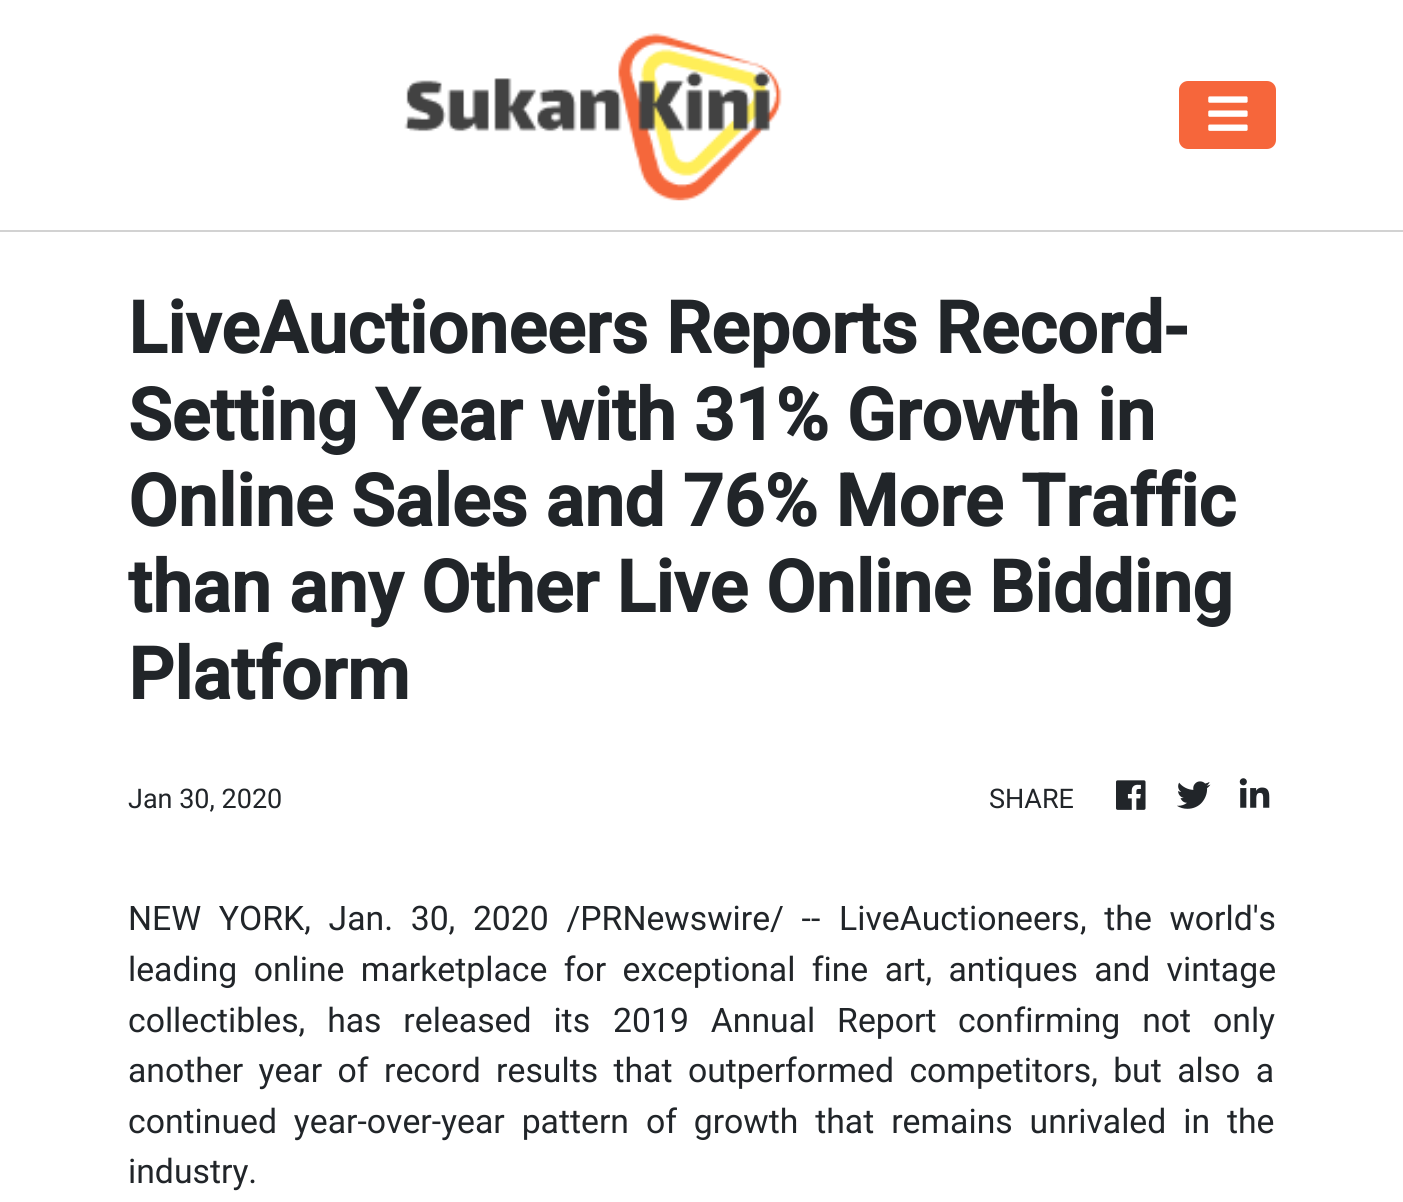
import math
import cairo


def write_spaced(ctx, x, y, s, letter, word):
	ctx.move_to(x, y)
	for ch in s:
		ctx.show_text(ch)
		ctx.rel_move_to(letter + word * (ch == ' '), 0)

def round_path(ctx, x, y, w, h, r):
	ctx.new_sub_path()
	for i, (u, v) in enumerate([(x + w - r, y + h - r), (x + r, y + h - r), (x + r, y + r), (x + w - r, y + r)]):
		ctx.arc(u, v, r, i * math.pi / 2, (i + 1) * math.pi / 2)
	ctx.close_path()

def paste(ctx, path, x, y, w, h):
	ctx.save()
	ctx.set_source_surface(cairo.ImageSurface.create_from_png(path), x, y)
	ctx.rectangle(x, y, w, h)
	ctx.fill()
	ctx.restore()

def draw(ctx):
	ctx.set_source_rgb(1, 1, 1)
	ctx.paint()
	ctx.set_source_rgb(0.824, 0.824, 0.824)
	ctx.rectangle(0, 230, 1403, 2)
	ctx.fill()
	paste(ctx, 'media/1.png', 404, 33, 378, 168)
	ctx.set_source_rgb(0.961, 0.4, 0.231)
	round_path(ctx, 1179, 81, 97, 68, 9)
	ctx.fill()
	paste(ctx, 'media/2.png', 1208, 96, 40, 35)
	ctx.select_font_face('Roboto', cairo.FONT_SLANT_NORMAL, cairo.FONT_WEIGHT_BOLD)
	ctx.set_font_size(72)
	ctx.set_source_rgb(0.129, 0.145, 0.161)
	for x, y, s in [
		(128, 353, 'LiveAuctioneers Reports Record-'),
		(128, 440, 'Setting Year with 31% Growth in'),
		(128, 526, 'Online Sales and 76% More Traffic'),
		(128, 612, 'than any Other Live Online Bidding'),
		(128, 699, 'Platform'),
	]:
		ctx.move_to(x, y)
		ctx.show_text(s)
	ctx.select_font_face('Roboto')
	ctx.set_font_size(27)
	ctx.move_to(128, 808)
	ctx.show_text('Jan 30, 2020')
	ctx.move_to(989, 808)
	ctx.show_text('SHARE')
	paste(ctx, 'media/3.png', 1116, 780, 30, 30)
	paste(ctx, 'media/4.png', 1177, 781, 34, 28)
	paste(ctx, 'media/5.png', 1239, 778, 31, 30)
	ctx.set_font_size(33.75)
	write_spaced(ctx, 128, 930, 'NEW YORK, Jan. 30, 2020 /PRNewswire/ --', 0, 9.25)
	ctx.move_to(839, 930)
	ctx.show_text('LiveAuctioneers')
	write_spaced(ctx, 1080, 930, ', the world\'s', 0, 9.25)
	write_spaced(ctx, 128, 981, 'leading online marketplace for exceptional fine art, antiques and vintage', 0, 8)
	for x, y, s in [
		(128, 1032, 'collectibles, has released its'),
		(613, 1032, '2019 Annual Report'),
		(958, 1032, 'confirming not only'),
	]:
		write_spaced(ctx, x, y, s, 0, 13.5)
	write_spaced(ctx, 128, 1082, 'another year of record results that outperformed competitors, but also a', 0, 7)
	write_spaced(ctx, 128, 1133, 'continued year-over-year pattern of growth that remains unrivaled in the', 0, 8.5)
	ctx.move_to(128, 1183)
	ctx.show_text('industry.')


surface = cairo.ImageSurface(cairo.FORMAT_RGB24, 1403, 1202)
ctx = cairo.Context(surface)
options = cairo.FontOptions()
options.set_hint_metrics(cairo.HINT_METRICS_OFF)
options.set_hint_style(cairo.HINT_STYLE_NONE)
ctx.set_font_options(options)
ctx.set_miter_limit(4)
draw(ctx)
surface.write_to_png('image.png')
